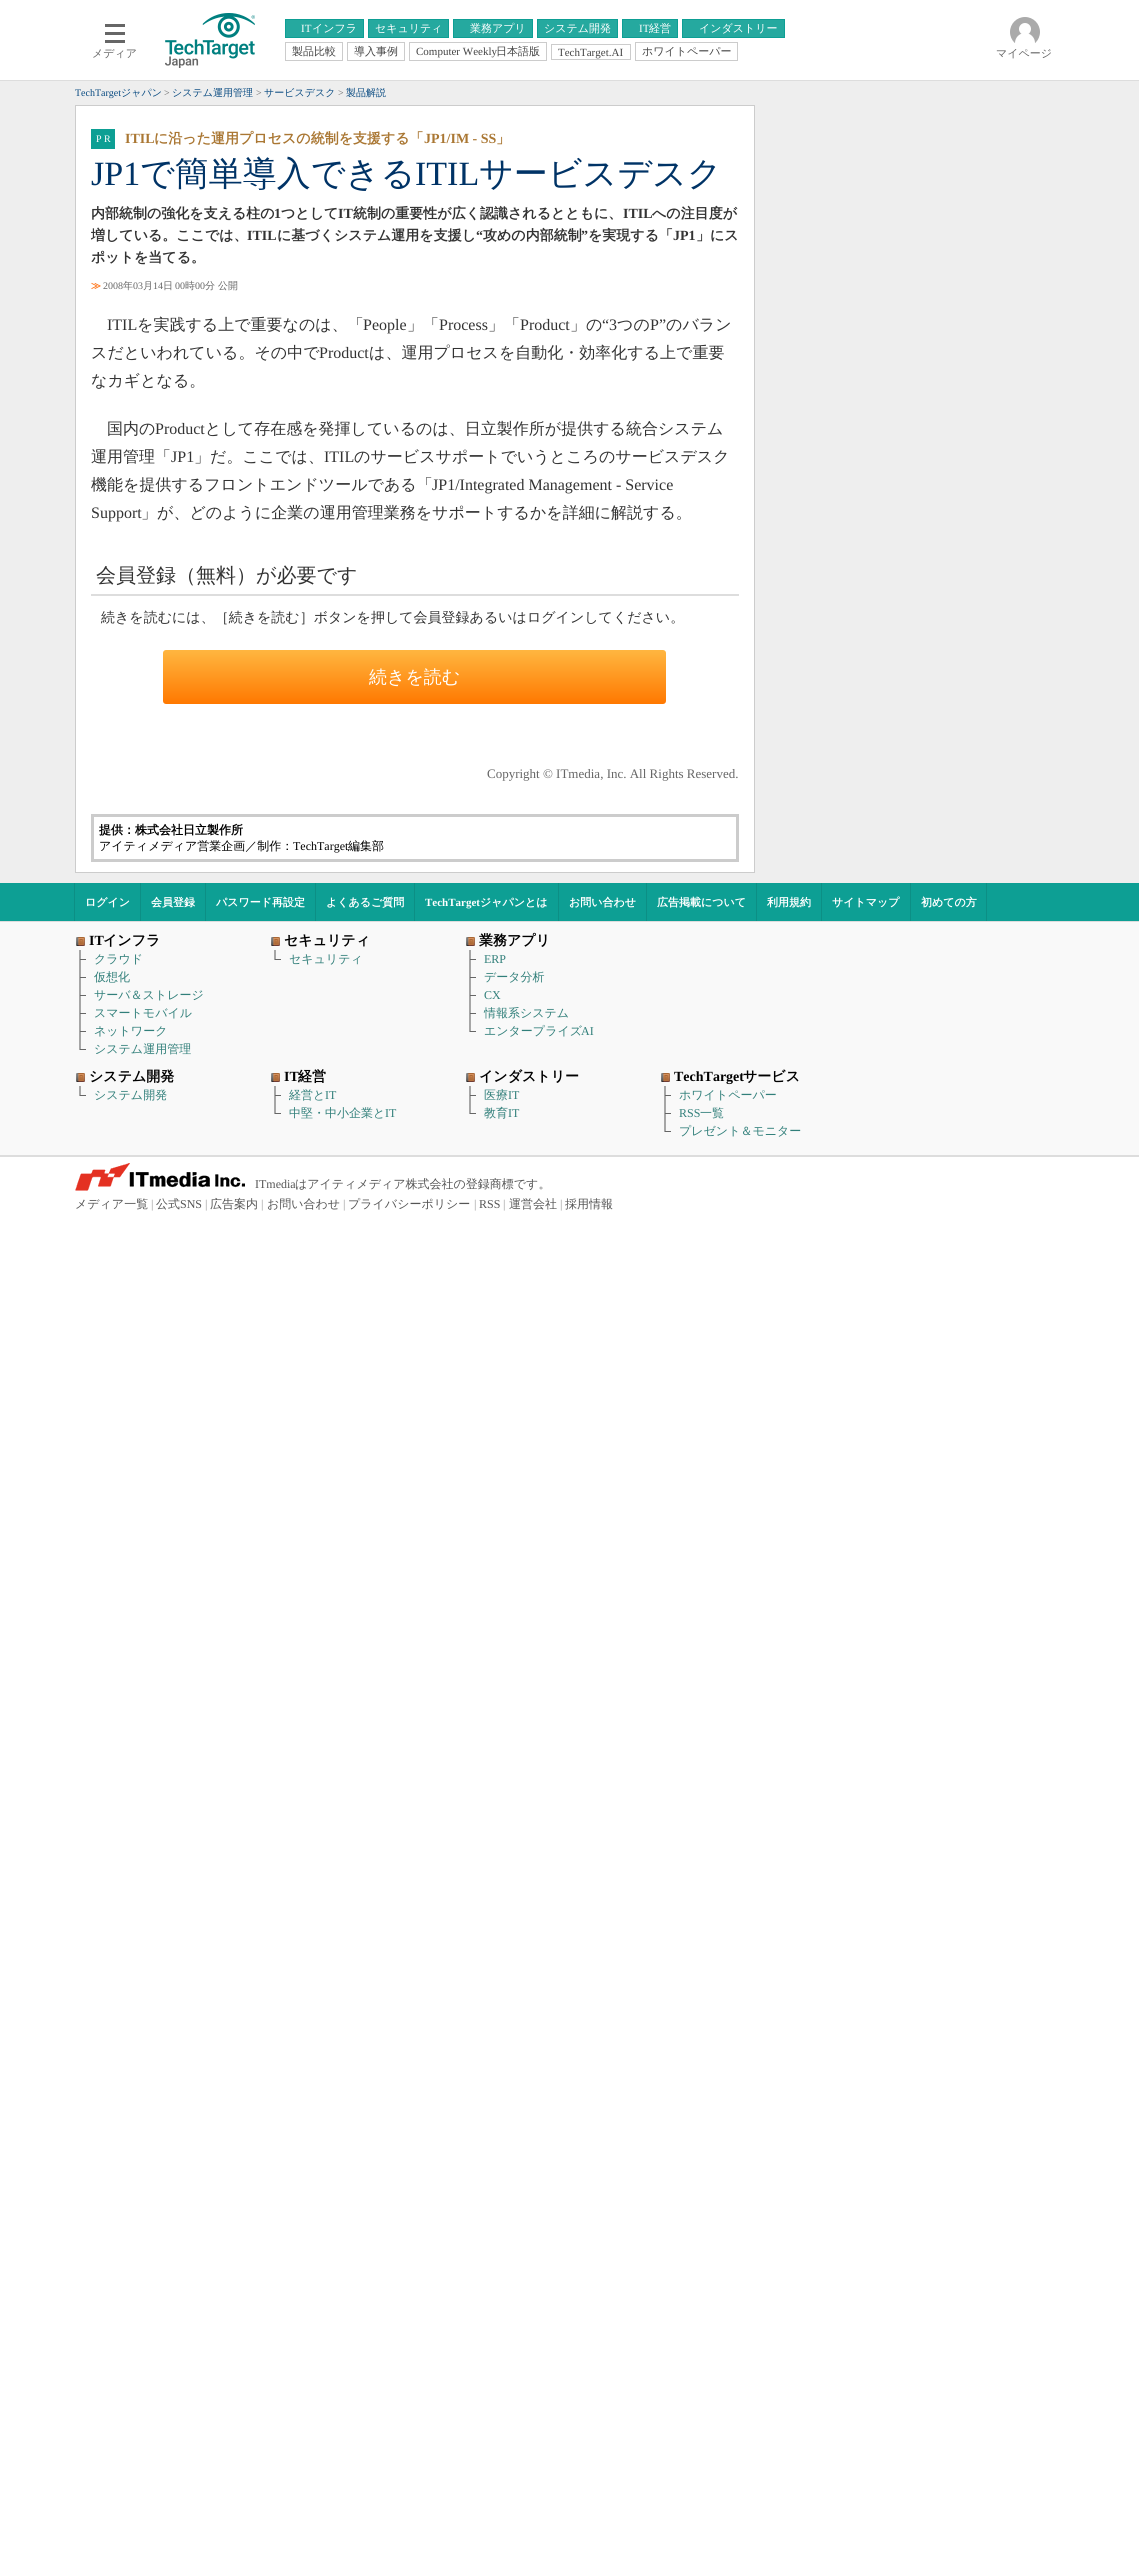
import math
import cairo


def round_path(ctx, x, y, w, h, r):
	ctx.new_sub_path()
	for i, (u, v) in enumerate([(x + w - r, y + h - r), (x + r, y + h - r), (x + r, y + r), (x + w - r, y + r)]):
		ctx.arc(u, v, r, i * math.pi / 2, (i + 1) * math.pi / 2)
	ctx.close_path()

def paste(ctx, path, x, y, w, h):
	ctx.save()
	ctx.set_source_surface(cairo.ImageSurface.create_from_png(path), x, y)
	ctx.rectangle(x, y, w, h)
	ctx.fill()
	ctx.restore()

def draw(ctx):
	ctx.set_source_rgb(1, 1, 1)
	ctx.paint()
	ctx.set_source_rgb(0.867, 0.867, 0.867)
	ctx.rectangle(0, 80, 1139, 1)
	ctx.fill()
	ctx.set_source_rgb(0.4, 0.4, 0.4)
	ctx.rectangle(105, 24, 20, 3)
	ctx.rectangle(105, 32, 20, 3)
	ctx.rectangle(105, 40, 20, 3)
	ctx.fill()
	ctx.select_font_face('WenQuanYi Zen Hei Medium')
	ctx.set_font_size(11)
	ctx.move_to(92, 57)
	ctx.show_text('メディア')
	paste(ctx, 'media/1.png', 165, 13, 90, 55)
	ctx.set_source_rgb(0.145, 0.663, 0.624)
	ctx.rectangle(285.5, 19.5, 78, 18)
	ctx.fill_preserve()
	ctx.set_source_rgb(0.051, 0.624, 0.58)
	ctx.set_line_width(1)
	ctx.stroke()
	ctx.select_font_face('Liberation Serif')
	ctx.set_source_rgb(1, 1, 1)
	ctx.move_to(301, 32)
	ctx.show_text('IT')
	ctx.select_font_face('WenQuanYi Zen Hei Medium')
	ctx.move_to(312, 32)
	ctx.show_text('インフラ')
	ctx.set_source_rgb(0.145, 0.663, 0.624)
	ctx.rectangle(368.5, 19.5, 80, 18)
	ctx.fill_preserve()
	ctx.set_source_rgb(0.051, 0.624, 0.58)
	ctx.stroke()
	ctx.set_source_rgb(1, 1, 1)
	ctx.move_to(375, 32)
	ctx.show_text('セキュリティ')
	ctx.set_source_rgb(0.145, 0.663, 0.624)
	ctx.rectangle(453.5, 19.5, 79, 18)
	ctx.fill_preserve()
	ctx.set_source_rgb(0.051, 0.624, 0.58)
	ctx.stroke()
	ctx.set_source_rgb(1, 1, 1)
	ctx.move_to(470, 32)
	ctx.show_text('業務アプリ')
	ctx.set_source_rgb(0.145, 0.663, 0.624)
	ctx.rectangle(537.5, 19.5, 80, 18)
	ctx.fill_preserve()
	ctx.set_source_rgb(0.051, 0.624, 0.58)
	ctx.stroke()
	ctx.set_source_rgb(1, 1, 1)
	ctx.move_to(544, 32)
	ctx.show_text('システム開発')
	ctx.set_source_rgb(0.145, 0.663, 0.624)
	ctx.rectangle(622.5, 19.5, 55, 18)
	ctx.fill_preserve()
	ctx.set_source_rgb(0.051, 0.624, 0.58)
	ctx.stroke()
	ctx.select_font_face('Liberation Serif')
	ctx.set_source_rgb(1, 1, 1)
	ctx.move_to(639, 32)
	ctx.show_text('IT')
	ctx.select_font_face('WenQuanYi Zen Hei Medium')
	ctx.move_to(649, 32)
	ctx.show_text('経営')
	ctx.set_source_rgb(0.145, 0.663, 0.624)
	ctx.rectangle(682.5, 19.5, 102, 18)
	ctx.fill_preserve()
	ctx.set_source_rgb(0.051, 0.624, 0.58)
	ctx.stroke()
	ctx.set_source_rgb(1, 1, 1)
	ctx.move_to(699, 32)
	ctx.show_text('インダストリー')
	ctx.rectangle(285.5, 42.5, 57, 18)
	ctx.set_source_rgb(0.8, 0.8, 0.8)
	ctx.stroke()
	ctx.set_source_rgb(0.267, 0.267, 0.267)
	ctx.move_to(292, 55)
	ctx.show_text('製品比較')
	ctx.rectangle(347.5, 42.5, 57, 18)
	ctx.set_source_rgb(0.8, 0.8, 0.8)
	ctx.stroke()
	ctx.set_source_rgb(0.267, 0.267, 0.267)
	ctx.move_to(354, 55)
	ctx.show_text('導入事例')
	ctx.rectangle(409.5, 42.5, 137, 18)
	ctx.set_source_rgb(0.8, 0.8, 0.8)
	ctx.stroke()
	ctx.select_font_face('Liberation Serif')
	ctx.set_source_rgb(0.267, 0.267, 0.267)
	ctx.move_to(416, 55)
	ctx.show_text('Computer Weekly')
	ctx.select_font_face('WenQuanYi Zen Hei Medium')
	ctx.move_to(496, 55)
	ctx.show_text('日本語版')
	ctx.rectangle(551.5, 44.5, 79, 15)
	ctx.set_source_rgb(0.8, 0.8, 0.8)
	ctx.stroke()
	ctx.select_font_face('Liberation Serif')
	ctx.set_source_rgb(0.267, 0.267, 0.267)
	ctx.move_to(558, 56)
	ctx.show_text('TechTarget.AI')
	ctx.rectangle(635.5, 42.5, 102, 18)
	ctx.set_source_rgb(0.8, 0.8, 0.8)
	ctx.stroke()
	ctx.select_font_face('WenQuanYi Zen Hei Medium')
	ctx.set_source_rgb(0.267, 0.267, 0.267)
	ctx.move_to(642, 55)
	ctx.show_text('ホワイトペーパー')
	ctx.set_source_rgb(0.667, 0.667, 0.667)
	ctx.new_path()
	ctx.arc(1025, 32, 15, 0, 2 * math.pi)
	ctx.fill()
	ctx.set_source_rgb(1, 1, 1)
	ctx.new_path()
	ctx.move_to(1025, 33)
	ctx.curve_to(1030.5, 33, 1035, 37.5, 1035, 43)
	ctx.line_to(1035, 47)
	ctx.line_to(1015, 47)
	ctx.line_to(1015, 43)
	ctx.curve_to(1015, 37.5, 1019.5, 33, 1025, 33)
	ctx.close_path()
	ctx.fill()
	ctx.arc(1025, 29, 6, 0, 2 * math.pi)
	ctx.fill()
	ctx.set_source_rgb(0.4, 0.4, 0.4)
	ctx.move_to(996, 57)
	ctx.show_text('マイページ')
	ctx.set_source_rgb(0.933, 0.933, 0.933)
	ctx.rectangle(0, 81, 1139, 802)
	ctx.fill()
	ctx.select_font_face('Liberation Serif')
	ctx.set_font_size(10)
	ctx.set_source_rgb(0.035, 0.29, 0.506)
	ctx.move_to(75, 96)
	ctx.show_text('TechTarget')
	ctx.select_font_face('WenQuanYi Zen Hei Medium')
	ctx.move_to(121, 96)
	ctx.show_text('ジャパン')
	ctx.select_font_face('Liberation Serif')
	ctx.set_source_rgb(0.4, 0.4, 0.4)
	ctx.move_to(164, 96)
	ctx.show_text('>')
	ctx.select_font_face('WenQuanYi Zen Hei Medium')
	ctx.set_source_rgb(0.035, 0.29, 0.506)
	ctx.move_to(172, 96)
	ctx.show_text('システム運用管理')
	ctx.select_font_face('Liberation Serif')
	ctx.set_source_rgb(0.4, 0.4, 0.4)
	ctx.move_to(256, 96)
	ctx.show_text('>')
	ctx.select_font_face('WenQuanYi Zen Hei Medium')
	ctx.set_source_rgb(0.035, 0.29, 0.506)
	ctx.move_to(264, 96)
	ctx.show_text('サービスデスク')
	ctx.select_font_face('Liberation Serif')
	ctx.set_source_rgb(0.4, 0.4, 0.4)
	ctx.move_to(338, 96)
	ctx.show_text('>')
	ctx.select_font_face('WenQuanYi Zen Hei Medium')
	ctx.set_source_rgb(0.035, 0.29, 0.506)
	ctx.move_to(346, 96)
	ctx.show_text('製品解説')
	ctx.set_source_rgb(1, 1, 1)
	ctx.rectangle(75.5, 105.5, 679, 767)
	ctx.fill_preserve()
	ctx.set_source_rgb(0.8, 0.8, 0.8)
	ctx.stroke()
	ctx.set_source_rgb(0.051, 0.624, 0.58)
	ctx.rectangle(91, 129, 24, 20)
	ctx.fill()
	ctx.select_font_face('Liberation Serif')
	ctx.set_source_rgb(1, 1, 1)
	ctx.move_to(96, 142)
	ctx.show_text('P R')
	ctx.select_font_face('Liberation Serif', cairo.FONT_SLANT_NORMAL, cairo.FONT_WEIGHT_BOLD)
	ctx.set_font_size(14)
	ctx.set_source_rgb(0.667, 0.467, 0.2)
	ctx.move_to(125, 143)
	ctx.show_text('ITIL')
	ctx.select_font_face('WenQuanYi Zen Hei', cairo.FONT_SLANT_NORMAL, cairo.FONT_WEIGHT_BOLD)
	ctx.move_to(154, 143)
	ctx.show_text('に沿った運用プロセスの統制を支援する「')
	ctx.select_font_face('Liberation Serif', cairo.FONT_SLANT_NORMAL, cairo.FONT_WEIGHT_BOLD)
	ctx.move_to(424, 143)
	ctx.show_text('JP1/IM - SS')
	ctx.select_font_face('WenQuanYi Zen Hei', cairo.FONT_SLANT_NORMAL, cairo.FONT_WEIGHT_BOLD)
	ctx.move_to(496, 143)
	ctx.show_text('」')
	ctx.select_font_face('Liberation Serif')
	ctx.set_font_size(34)
	ctx.set_source_rgb(0, 0.2, 0.4)
	ctx.move_to(91, 185)
	ctx.show_text('JP1')
	ctx.select_font_face('WenQuanYi Zen Hei Medium')
	ctx.move_to(140, 185)
	ctx.show_text('で簡単導入できる')
	ctx.select_font_face('Liberation Serif')
	ctx.move_to(415, 185)
	ctx.show_text('ITIL')
	ctx.select_font_face('WenQuanYi Zen Hei Medium')
	ctx.move_to(479, 185)
	ctx.show_text('サービスデスク')
	ctx.select_font_face('WenQuanYi Zen Hei', cairo.FONT_SLANT_NORMAL, cairo.FONT_WEIGHT_BOLD)
	ctx.set_font_size(14)
	ctx.set_source_rgb(0.2, 0.2, 0.2)
	ctx.move_to(91, 218)
	ctx.show_text('内部統制の強化を支える柱の')
	ctx.select_font_face('Liberation Serif', cairo.FONT_SLANT_NORMAL, cairo.FONT_WEIGHT_BOLD)
	ctx.move_to(274, 218)
	ctx.show_text('1')
	ctx.select_font_face('WenQuanYi Zen Hei', cairo.FONT_SLANT_NORMAL, cairo.FONT_WEIGHT_BOLD)
	ctx.move_to(281, 218)
	ctx.show_text('つとして')
	ctx.select_font_face('Liberation Serif', cairo.FONT_SLANT_NORMAL, cairo.FONT_WEIGHT_BOLD)
	ctx.move_to(338, 218)
	ctx.show_text('IT')
	ctx.select_font_face('WenQuanYi Zen Hei', cairo.FONT_SLANT_NORMAL, cairo.FONT_WEIGHT_BOLD)
	ctx.move_to(353, 218)
	ctx.show_text('統制の重要性が広く認識されるとともに、')
	ctx.select_font_face('Liberation Serif', cairo.FONT_SLANT_NORMAL, cairo.FONT_WEIGHT_BOLD)
	ctx.move_to(623, 218)
	ctx.show_text('ITIL')
	ctx.select_font_face('WenQuanYi Zen Hei', cairo.FONT_SLANT_NORMAL, cairo.FONT_WEIGHT_BOLD)
	ctx.move_to(652, 218)
	ctx.show_text('への注目度が')
	ctx.move_to(91, 240)
	ctx.show_text('増している。ここでは、')
	ctx.select_font_face('Liberation Serif', cairo.FONT_SLANT_NORMAL, cairo.FONT_WEIGHT_BOLD)
	ctx.move_to(247, 240)
	ctx.show_text('ITIL')
	ctx.select_font_face('WenQuanYi Zen Hei', cairo.FONT_SLANT_NORMAL, cairo.FONT_WEIGHT_BOLD)
	ctx.move_to(277, 240)
	ctx.show_text('に基づくシステム運用を支援し')
	ctx.select_font_face('Liberation Serif', cairo.FONT_SLANT_NORMAL, cairo.FONT_WEIGHT_BOLD)
	ctx.move_to(476, 240)
	ctx.show_text('“')
	ctx.select_font_face('WenQuanYi Zen Hei', cairo.FONT_SLANT_NORMAL, cairo.FONT_WEIGHT_BOLD)
	ctx.move_to(483, 240)
	ctx.show_text('攻めの内部統制')
	ctx.select_font_face('Liberation Serif', cairo.FONT_SLANT_NORMAL, cairo.FONT_WEIGHT_BOLD)
	ctx.move_to(581, 240)
	ctx.show_text('”')
	ctx.select_font_face('WenQuanYi Zen Hei', cairo.FONT_SLANT_NORMAL, cairo.FONT_WEIGHT_BOLD)
	ctx.move_to(588, 240)
	ctx.show_text('を実現する「')
	ctx.select_font_face('Liberation Serif', cairo.FONT_SLANT_NORMAL, cairo.FONT_WEIGHT_BOLD)
	ctx.move_to(673, 240)
	ctx.show_text('JP1')
	ctx.select_font_face('WenQuanYi Zen Hei', cairo.FONT_SLANT_NORMAL, cairo.FONT_WEIGHT_BOLD)
	ctx.move_to(696, 240)
	ctx.show_text('」にス')
	ctx.move_to(91, 262)
	ctx.show_text('ポットを当てる。')
	ctx.set_font_size(10)
	ctx.set_source_rgb(1, 0.4, 0)
	ctx.move_to(91, 289)
	ctx.show_text('≫')
	ctx.select_font_face('Liberation Serif')
	ctx.set_source_rgb(0.4, 0.4, 0.4)
	ctx.move_to(103, 289)
	ctx.show_text('2008')
	ctx.select_font_face('WenQuanYi Zen Hei Medium')
	ctx.move_to(123, 289)
	ctx.show_text('年')
	ctx.select_font_face('Liberation Serif')
	ctx.move_to(133, 289)
	ctx.show_text('03')
	ctx.select_font_face('WenQuanYi Zen Hei Medium')
	ctx.move_to(143, 289)
	ctx.show_text('月')
	ctx.select_font_face('Liberation Serif')
	ctx.move_to(153, 289)
	ctx.show_text('14')
	ctx.select_font_face('WenQuanYi Zen Hei Medium')
	ctx.move_to(163, 289)
	ctx.show_text('日')
	ctx.select_font_face('Liberation Serif')
	ctx.move_to(175, 289)
	ctx.show_text('00')
	ctx.select_font_face('WenQuanYi Zen Hei Medium')
	ctx.move_to(185, 289)
	ctx.show_text('時')
	ctx.select_font_face('Liberation Serif')
	ctx.move_to(195, 289)
	ctx.show_text('00')
	ctx.select_font_face('WenQuanYi Zen Hei Medium')
	ctx.move_to(205, 289)
	ctx.show_text('分 公開')
	ctx.select_font_face('Liberation Serif')
	ctx.set_font_size(16)
	ctx.set_source_rgb(0.2, 0.2, 0.2)
	ctx.move_to(107, 330)
	ctx.show_text('ITIL')
	ctx.select_font_face('WenQuanYi Zen Hei Medium')
	ctx.move_to(137, 330)
	ctx.show_text('を実践する上で重要なのは、「')
	ctx.select_font_face('Liberation Serif')
	ctx.move_to(363, 330)
	ctx.show_text('People')
	ctx.select_font_face('WenQuanYi Zen Hei Medium')
	ctx.move_to(407, 330)
	ctx.show_text('」「')
	ctx.select_font_face('Liberation Serif')
	ctx.move_to(439, 330)
	ctx.show_text('Process')
	ctx.select_font_face('WenQuanYi Zen Hei Medium')
	ctx.move_to(488, 330)
	ctx.show_text('」「')
	ctx.select_font_face('Liberation Serif')
	ctx.move_to(520, 330)
	ctx.show_text('Product')
	ctx.select_font_face('WenQuanYi Zen Hei Medium')
	ctx.move_to(570, 330)
	ctx.show_text('」の')
	ctx.select_font_face('Liberation Serif')
	ctx.move_to(602, 330)
	ctx.show_text('“3')
	ctx.select_font_face('WenQuanYi Zen Hei Medium')
	ctx.move_to(617, 330)
	ctx.show_text('つの')
	ctx.select_font_face('Liberation Serif')
	ctx.move_to(650, 330)
	ctx.show_text('P”')
	ctx.select_font_face('WenQuanYi Zen Hei Medium')
	ctx.move_to(666, 330)
	ctx.show_text('のバラン')
	ctx.move_to(91, 358)
	ctx.show_text('スだといわれている。その中で')
	ctx.select_font_face('Liberation Serif')
	ctx.move_to(319, 358)
	ctx.show_text('Product')
	ctx.select_font_face('WenQuanYi Zen Hei Medium')
	for x, y, s in [
		(369, 358, 'は、運用プロセスを自動化・効率化する上で重要'),
		(91, 386, 'なカギとなる。'),
		(107, 434, '国内の'),
	]:
		ctx.move_to(x, y)
		ctx.show_text(s)
	ctx.select_font_face('Liberation Serif')
	ctx.move_to(155, 434)
	ctx.show_text('Product')
	ctx.select_font_face('WenQuanYi Zen Hei Medium')
	ctx.move_to(205, 434)
	ctx.show_text('として存在感を発揮しているのは、日立製作所が提供する統合システム')
	ctx.move_to(91, 462)
	ctx.show_text('運用管理「')
	ctx.select_font_face('Liberation Serif')
	ctx.move_to(171, 462)
	ctx.show_text('JP1')
	ctx.select_font_face('WenQuanYi Zen Hei Medium')
	ctx.move_to(194, 462)
	ctx.show_text('」だ。ここでは、')
	ctx.select_font_face('Liberation Serif')
	ctx.move_to(324, 462)
	ctx.show_text('ITIL')
	ctx.select_font_face('WenQuanYi Zen Hei Medium')
	ctx.move_to(354, 462)
	ctx.show_text('のサービスサポートでいうところのサービスデスク')
	ctx.move_to(91, 490)
	ctx.show_text('機能を提供するフロントエンドツールである「')
	ctx.select_font_face('Liberation Serif')
	ctx.move_to(432, 490)
	ctx.show_text('JP1/Integrated Management - Service')
	ctx.move_to(91, 518)
	ctx.show_text('Support')
	ctx.select_font_face('WenQuanYi Zen Hei Medium')
	ctx.move_to(141, 518)
	ctx.show_text('」が、どのように企業の運用管理業務をサポートするかを詳細に解説する。')
	ctx.set_source_rgb(0.867, 0.867, 0.867)
	ctx.rectangle(91, 594, 648, 2)
	ctx.fill()
	ctx.set_font_size(20)
	ctx.set_source_rgb(0.2, 0.2, 0.2)
	ctx.move_to(96, 582)
	ctx.show_text('会員登録（無料）が必要です')
	ctx.set_font_size(14)
	ctx.move_to(101, 622)
	ctx.show_text('続きを読むには、［続きを読む］ボタンを押して会員登録あるいはログインしてください。')
	gradient = cairo.LinearGradient(415, 650, 415, 704)
	gradient.add_color_stop_rgba(0, 1, 0.714, 0.251, 1)
	gradient.add_color_stop_rgba(1, 1, 0.471, 0, 1)
	ctx.set_source(gradient)
	round_path(ctx, 163, 650, 503, 54, 3)
	ctx.fill()
	ctx.set_font_size(18)
	ctx.set_source_rgb(1, 1, 1)
	ctx.move_to(369, 683)
	ctx.show_text('続きを読む')
	ctx.select_font_face('Liberation Serif')
	ctx.set_font_size(13)
	ctx.set_source_rgb(0.4, 0.4, 0.4)
	ctx.move_to(487, 778)
	ctx.show_text('Copyright © ITmedia, Inc. All Rights Reserved.')
	ctx.rectangle(92.5, 815.5, 645, 45)
	ctx.set_source_rgb(0.8, 0.8, 0.8)
	ctx.set_line_width(3)
	ctx.stroke()
	ctx.select_font_face('WenQuanYi Zen Hei', cairo.FONT_SLANT_NORMAL, cairo.FONT_WEIGHT_BOLD)
	ctx.set_font_size(12)
	ctx.set_source_rgb(0, 0, 0)
	ctx.move_to(99, 834)
	ctx.show_text('提供：株式会社日立製作所')
	ctx.select_font_face('WenQuanYi Zen Hei Medium')
	ctx.move_to(99, 850)
	ctx.show_text('アイティメディア営業企画／制作：')
	ctx.select_font_face('Liberation Serif')
	ctx.move_to(293, 850)
	ctx.show_text('TechTarget')
	ctx.select_font_face('WenQuanYi Zen Hei Medium')
	ctx.move_to(348, 850)
	ctx.show_text('編集部')
	ctx.set_source_rgb(0.051, 0.624, 0.58)
	ctx.rectangle(0, 883, 1139, 38)
	ctx.fill()
	ctx.set_source_rgb(0.047, 0.561, 0.522)
	ctx.rectangle(74, 883, 1, 38)
	ctx.rectangle(140, 883, 1, 38)
	ctx.fill()
	ctx.select_font_face('WenQuanYi Zen Hei', cairo.FONT_SLANT_NORMAL, cairo.FONT_WEIGHT_BOLD)
	ctx.set_font_size(11)
	ctx.set_source_rgb(1, 1, 1)
	ctx.move_to(85, 906)
	ctx.show_text('ログイン')
	ctx.set_source_rgb(0.047, 0.561, 0.522)
	ctx.rectangle(205, 883, 1, 38)
	ctx.fill()
	ctx.set_source_rgb(1, 1, 1)
	ctx.move_to(151, 906)
	ctx.show_text('会員登録')
	ctx.set_source_rgb(0.047, 0.561, 0.522)
	ctx.rectangle(315, 883, 1, 38)
	ctx.fill()
	ctx.set_source_rgb(1, 1, 1)
	ctx.move_to(216, 906)
	ctx.show_text('パスワード再設定')
	ctx.set_source_rgb(0.047, 0.561, 0.522)
	ctx.rectangle(414, 883, 1, 38)
	ctx.fill()
	ctx.set_source_rgb(1, 1, 1)
	ctx.move_to(326, 906)
	ctx.show_text('よくあるご質問')
	ctx.set_source_rgb(0.047, 0.561, 0.522)
	ctx.rectangle(558, 883, 1, 38)
	ctx.fill()
	ctx.select_font_face('Liberation Serif', cairo.FONT_SLANT_NORMAL, cairo.FONT_WEIGHT_BOLD)
	ctx.set_source_rgb(1, 1, 1)
	ctx.move_to(425, 906)
	ctx.show_text('TechTarget')
	ctx.select_font_face('WenQuanYi Zen Hei', cairo.FONT_SLANT_NORMAL, cairo.FONT_WEIGHT_BOLD)
	ctx.move_to(480, 906)
	ctx.show_text('ジャパンとは')
	ctx.set_source_rgb(0.047, 0.561, 0.522)
	ctx.rectangle(646, 883, 1, 38)
	ctx.fill()
	ctx.set_source_rgb(1, 1, 1)
	ctx.move_to(569, 906)
	ctx.show_text('お問い合わせ')
	ctx.set_source_rgb(0.047, 0.561, 0.522)
	ctx.rectangle(756, 883, 1, 38)
	ctx.fill()
	ctx.set_source_rgb(1, 1, 1)
	ctx.move_to(657, 906)
	ctx.show_text('広告掲載について')
	ctx.set_source_rgb(0.047, 0.561, 0.522)
	ctx.rectangle(821, 883, 1, 38)
	ctx.fill()
	ctx.set_source_rgb(1, 1, 1)
	ctx.move_to(767, 906)
	ctx.show_text('利用規約')
	ctx.set_source_rgb(0.047, 0.561, 0.522)
	ctx.rectangle(910, 883, 1, 38)
	ctx.fill()
	ctx.set_source_rgb(1, 1, 1)
	ctx.move_to(832, 906)
	ctx.show_text('サイトマップ')
	ctx.set_source_rgb(0.047, 0.561, 0.522)
	ctx.rectangle(986, 883, 1, 38)
	ctx.fill()
	ctx.set_source_rgb(1, 1, 1)
	ctx.move_to(921, 906)
	ctx.show_text('初めての方')
	ctx.set_source_rgb(0.973, 0.973, 0.973)
	ctx.rectangle(0, 922, 1139, 233)
	ctx.fill()
	ctx.set_source_rgb(0.867, 0.867, 0.867)
	ctx.rectangle(0, 921, 1139, 1)
	ctx.rectangle(0, 1155, 1139, 2)
	ctx.fill()
	paste(ctx, 'media/2.png', 76, 937, 9, 9)
	ctx.select_font_face('Liberation Serif', cairo.FONT_SLANT_NORMAL, cairo.FONT_WEIGHT_BOLD)
	ctx.set_font_size(14)
	ctx.set_source_rgb(0, 0, 0)
	ctx.move_to(89, 945)
	ctx.show_text('IT')
	ctx.select_font_face('WenQuanYi Zen Hei', cairo.FONT_SLANT_NORMAL, cairo.FONT_WEIGHT_BOLD)
	ctx.move_to(103, 945)
	ctx.show_text('インフラ')
	paste(ctx, 'media/3.png', 79, 950, 7, 18)
	ctx.select_font_face('WenQuanYi Zen Hei Medium')
	ctx.set_font_size(12)
	ctx.set_source_rgb(0.192, 0.498, 0.478)
	ctx.move_to(94, 963)
	ctx.show_text('クラウド')
	paste(ctx, 'media/3.png', 79, 968, 7, 18)
	ctx.move_to(94, 981)
	ctx.show_text('仮想化')
	paste(ctx, 'media/3.png', 79, 986, 7, 18)
	ctx.move_to(94, 999)
	ctx.show_text('サーバ＆ストレージ')
	paste(ctx, 'media/3.png', 79, 1004, 7, 18)
	ctx.move_to(94, 1017)
	ctx.show_text('スマートモバイル')
	paste(ctx, 'media/3.png', 79, 1022, 7, 18)
	ctx.move_to(94, 1035)
	ctx.show_text('ネットワーク')
	paste(ctx, 'media/4.png', 79, 1040, 7, 10)
	ctx.move_to(94, 1053)
	ctx.show_text('システム運用管理')
	paste(ctx, 'media/2.png', 271, 937, 9, 9)
	ctx.select_font_face('WenQuanYi Zen Hei', cairo.FONT_SLANT_NORMAL, cairo.FONT_WEIGHT_BOLD)
	ctx.set_font_size(14)
	ctx.set_source_rgb(0, 0, 0)
	ctx.move_to(284, 945)
	ctx.show_text('セキュリティ')
	paste(ctx, 'media/4.png', 274, 950, 7, 10)
	ctx.select_font_face('WenQuanYi Zen Hei Medium')
	ctx.set_font_size(12)
	ctx.set_source_rgb(0.192, 0.498, 0.478)
	ctx.move_to(289, 963)
	ctx.show_text('セキュリティ')
	paste(ctx, 'media/2.png', 466, 937, 9, 9)
	ctx.select_font_face('WenQuanYi Zen Hei', cairo.FONT_SLANT_NORMAL, cairo.FONT_WEIGHT_BOLD)
	ctx.set_font_size(14)
	ctx.set_source_rgb(0, 0, 0)
	ctx.move_to(479, 945)
	ctx.show_text('業務アプリ')
	paste(ctx, 'media/3.png', 469, 950, 7, 18)
	ctx.select_font_face('Liberation Serif')
	ctx.set_font_size(12)
	ctx.set_source_rgb(0.192, 0.498, 0.478)
	ctx.move_to(484, 963)
	ctx.show_text('ERP')
	paste(ctx, 'media/3.png', 469, 968, 7, 18)
	ctx.select_font_face('WenQuanYi Zen Hei Medium')
	ctx.move_to(484, 981)
	ctx.show_text('データ分析')
	paste(ctx, 'media/3.png', 469, 986, 7, 18)
	ctx.select_font_face('Liberation Serif')
	ctx.move_to(484, 999)
	ctx.show_text('CX')
	paste(ctx, 'media/3.png', 469, 1004, 7, 18)
	ctx.select_font_face('WenQuanYi Zen Hei Medium')
	ctx.move_to(484, 1017)
	ctx.show_text('情報系システム')
	paste(ctx, 'media/4.png', 469, 1022, 7, 10)
	ctx.move_to(484, 1035)
	ctx.show_text('エンタープライズ')
	ctx.select_font_face('Liberation Serif')
	ctx.move_to(581, 1035)
	ctx.show_text('AI')
	paste(ctx, 'media/2.png', 76, 1073, 9, 9)
	ctx.select_font_face('WenQuanYi Zen Hei', cairo.FONT_SLANT_NORMAL, cairo.FONT_WEIGHT_BOLD)
	ctx.set_font_size(14)
	ctx.set_source_rgb(0, 0, 0)
	ctx.move_to(89, 1081)
	ctx.show_text('システム開発')
	paste(ctx, 'media/4.png', 79, 1086, 7, 10)
	ctx.select_font_face('WenQuanYi Zen Hei Medium')
	ctx.set_font_size(12)
	ctx.set_source_rgb(0.192, 0.498, 0.478)
	ctx.move_to(94, 1099)
	ctx.show_text('システム開発')
	paste(ctx, 'media/2.png', 271, 1073, 9, 9)
	ctx.select_font_face('Liberation Serif', cairo.FONT_SLANT_NORMAL, cairo.FONT_WEIGHT_BOLD)
	ctx.set_font_size(14)
	ctx.set_source_rgb(0, 0, 0)
	ctx.move_to(284, 1081)
	ctx.show_text('IT')
	ctx.select_font_face('WenQuanYi Zen Hei', cairo.FONT_SLANT_NORMAL, cairo.FONT_WEIGHT_BOLD)
	ctx.move_to(298, 1081)
	ctx.show_text('経営')
	paste(ctx, 'media/3.png', 274, 1086, 7, 18)
	ctx.select_font_face('WenQuanYi Zen Hei Medium')
	ctx.set_font_size(12)
	ctx.set_source_rgb(0.192, 0.498, 0.478)
	ctx.move_to(289, 1099)
	ctx.show_text('経営と')
	ctx.select_font_face('Liberation Serif')
	ctx.move_to(325, 1099)
	ctx.show_text('IT')
	paste(ctx, 'media/4.png', 274, 1104, 7, 10)
	ctx.select_font_face('WenQuanYi Zen Hei Medium')
	ctx.move_to(289, 1117)
	ctx.show_text('中堅・中小企業と')
	ctx.select_font_face('Liberation Serif')
	ctx.move_to(385, 1117)
	ctx.show_text('IT')
	paste(ctx, 'media/2.png', 466, 1073, 9, 9)
	ctx.select_font_face('WenQuanYi Zen Hei', cairo.FONT_SLANT_NORMAL, cairo.FONT_WEIGHT_BOLD)
	ctx.set_font_size(14)
	ctx.set_source_rgb(0, 0, 0)
	ctx.move_to(479, 1081)
	ctx.show_text('インダストリー')
	paste(ctx, 'media/3.png', 469, 1086, 7, 18)
	ctx.select_font_face('WenQuanYi Zen Hei Medium')
	ctx.set_font_size(12)
	ctx.set_source_rgb(0.192, 0.498, 0.478)
	ctx.move_to(484, 1099)
	ctx.show_text('医療')
	ctx.select_font_face('Liberation Serif')
	ctx.move_to(508, 1099)
	ctx.show_text('IT')
	paste(ctx, 'media/4.png', 469, 1104, 7, 10)
	ctx.select_font_face('WenQuanYi Zen Hei Medium')
	ctx.move_to(484, 1117)
	ctx.show_text('教育')
	ctx.select_font_face('Liberation Serif')
	ctx.move_to(508, 1117)
	ctx.show_text('IT')
	paste(ctx, 'media/2.png', 661, 1073, 9, 9)
	ctx.select_font_face('Liberation Serif', cairo.FONT_SLANT_NORMAL, cairo.FONT_WEIGHT_BOLD)
	ctx.set_font_size(14)
	ctx.set_source_rgb(0, 0, 0)
	ctx.move_to(674, 1081)
	ctx.show_text('TechTarget')
	ctx.select_font_face('WenQuanYi Zen Hei', cairo.FONT_SLANT_NORMAL, cairo.FONT_WEIGHT_BOLD)
	ctx.move_to(743, 1081)
	ctx.show_text('サービス')
	paste(ctx, 'media/3.png', 664, 1086, 7, 18)
	ctx.select_font_face('WenQuanYi Zen Hei Medium')
	ctx.set_font_size(12)
	ctx.set_source_rgb(0.192, 0.498, 0.478)
	ctx.move_to(679, 1099)
	ctx.show_text('ホワイトペーパー')
	paste(ctx, 'media/3.png', 664, 1104, 7, 18)
	ctx.select_font_face('Liberation Serif')
	ctx.move_to(679, 1117)
	ctx.show_text('RSS')
	ctx.select_font_face('WenQuanYi Zen Hei Medium')
	ctx.move_to(700, 1117)
	ctx.show_text('一覧')
	paste(ctx, 'media/4.png', 664, 1122, 7, 10)
	ctx.move_to(679, 1135)
	ctx.show_text('プレゼント＆モニター')
	paste(ctx, 'media/5.png', 75, 1163, 170, 28)
	ctx.select_font_face('Liberation Serif')
	ctx.set_source_rgb(0.333, 0.333, 0.333)
	ctx.move_to(255, 1188)
	ctx.show_text('ITmedia')
	ctx.select_font_face('WenQuanYi Zen Hei Medium')
	ctx.move_to(295, 1188)
	ctx.show_text('はアイティメディア株式会社の登録商標です。')
	ctx.move_to(75, 1208)
	ctx.show_text('メディア一覧')
	ctx.select_font_face('Liberation Serif')
	ctx.set_source_rgb(0.6, 0.6, 0.6)
	ctx.move_to(151, 1208)
	ctx.show_text('|')
	ctx.select_font_face('WenQuanYi Zen Hei Medium')
	ctx.set_source_rgb(0.333, 0.333, 0.333)
	ctx.move_to(156, 1208)
	ctx.show_text('公式')
	ctx.select_font_face('Liberation Serif')
	ctx.move_to(180, 1208)
	ctx.show_text('SNS')
	ctx.set_source_rgb(0.6, 0.6, 0.6)
	ctx.move_to(205, 1208)
	ctx.show_text('|')
	ctx.select_font_face('WenQuanYi Zen Hei Medium')
	ctx.set_source_rgb(0.333, 0.333, 0.333)
	ctx.move_to(210, 1208)
	ctx.show_text('広告案内')
	ctx.select_font_face('Liberation Serif')
	ctx.set_source_rgb(0.6, 0.6, 0.6)
	ctx.move_to(261, 1208)
	ctx.show_text('|')
	ctx.select_font_face('WenQuanYi Zen Hei Medium')
	ctx.set_source_rgb(0.333, 0.333, 0.333)
	ctx.move_to(267, 1208)
	ctx.show_text('お問い合わせ')
	ctx.select_font_face('Liberation Serif')
	ctx.set_source_rgb(0.6, 0.6, 0.6)
	ctx.move_to(343, 1208)
	ctx.show_text('|')
	ctx.select_font_face('WenQuanYi Zen Hei Medium')
	ctx.set_source_rgb(0.333, 0.333, 0.333)
	ctx.move_to(348, 1208)
	ctx.show_text('プライバシーポリシー')
	ctx.select_font_face('Liberation Serif')
	ctx.set_source_rgb(0.6, 0.6, 0.6)
	ctx.move_to(474, 1208)
	ctx.show_text('|')
	ctx.set_source_rgb(0.333, 0.333, 0.333)
	ctx.move_to(479, 1208)
	ctx.show_text('RSS')
	ctx.set_source_rgb(0.6, 0.6, 0.6)
	ctx.move_to(503, 1208)
	ctx.show_text('|')
	ctx.select_font_face('WenQuanYi Zen Hei Medium')
	ctx.set_source_rgb(0.333, 0.333, 0.333)
	ctx.move_to(509, 1208)
	ctx.show_text('運営会社')
	ctx.select_font_face('Liberation Serif')
	ctx.set_source_rgb(0.6, 0.6, 0.6)
	ctx.move_to(560, 1208)
	ctx.show_text('|')
	ctx.select_font_face('WenQuanYi Zen Hei Medium')
	ctx.set_source_rgb(0.333, 0.333, 0.333)
	ctx.move_to(565, 1208)
	ctx.show_text('採用情報')


surface = cairo.ImageSurface(cairo.FORMAT_RGB24, 1139, 2572)
ctx = cairo.Context(surface)
options = cairo.FontOptions()
options.set_hint_metrics(cairo.HINT_METRICS_OFF)
options.set_hint_style(cairo.HINT_STYLE_NONE)
ctx.set_font_options(options)
ctx.set_miter_limit(4)
draw(ctx)
surface.write_to_png('image.png')
